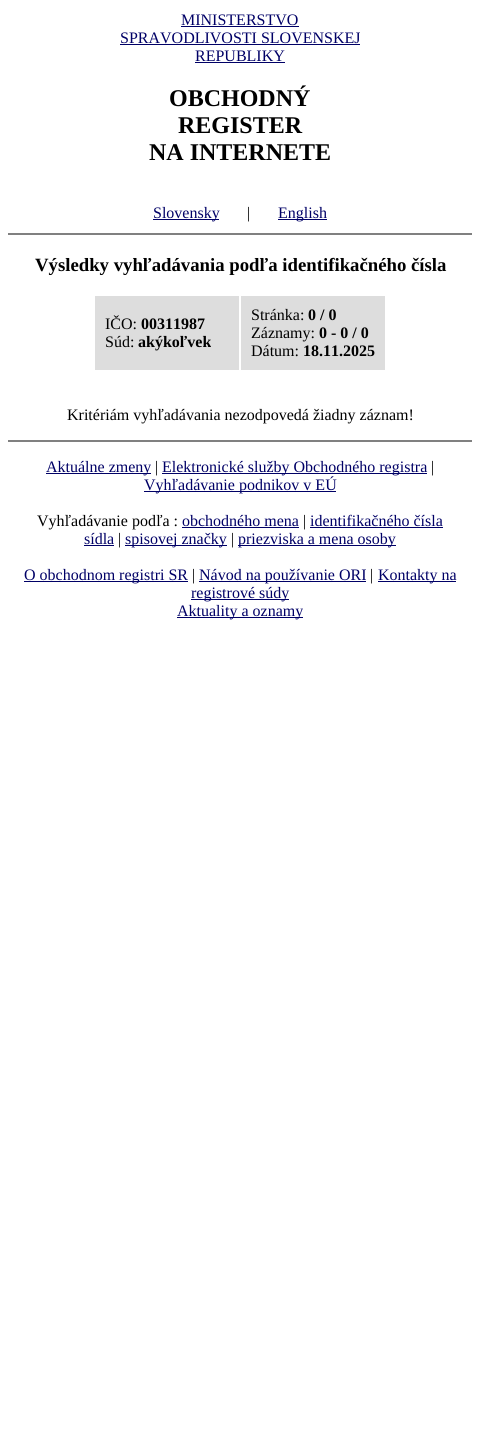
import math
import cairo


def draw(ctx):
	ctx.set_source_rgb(1, 1, 1)
	ctx.paint()
	ctx.select_font_face('Liberation Serif')
	ctx.set_font_size(16)
	ctx.set_source_rgb(0, 0, 0.4)
	ctx.move_to(181, 25)
	ctx.show_text('MINISTERSTVO')
	ctx.rectangle(181, 26, 118, 1)
	ctx.fill()
	ctx.move_to(120, 43)
	ctx.show_text('SPRAVODLIVOSTI SLOVENSKEJ')
	ctx.rectangle(120, 44, 240, 1)
	ctx.fill()
	ctx.move_to(195, 61)
	ctx.show_text('REPUBLIKY')
	ctx.rectangle(195, 62, 90, 1)
	ctx.fill()
	ctx.select_font_face('Liberation Serif', cairo.FONT_SLANT_NORMAL, cairo.FONT_WEIGHT_BOLD)
	ctx.set_font_size(24)
	ctx.set_source_rgb(0, 0, 0)
	for x, y, s in [
		(169, 106, 'OBCHODNÝ'),
		(178, 133, 'REGISTER'),
		(149, 160, 'NA INTERNETE'),
	]:
		ctx.move_to(x, y)
		ctx.show_text(s)
	ctx.set_source_rgb(0, 0, 0.4)
	ctx.rectangle(153, 219, 66, 1)
	ctx.fill()
	ctx.select_font_face('Liberation Serif')
	ctx.set_font_size(16)
	ctx.move_to(153, 218)
	ctx.show_text('Slovensky')
	ctx.set_source_rgb(0, 0, 0)
	ctx.move_to(247, 218)
	ctx.show_text('|')
	ctx.set_source_rgb(0, 0, 0.4)
	ctx.rectangle(278, 219, 49, 1)
	ctx.fill()
	ctx.move_to(278, 218)
	ctx.show_text('English')
	ctx.set_source_rgb(0.502, 0.502, 0.502)
	ctx.rectangle(8, 233, 464, 2)
	ctx.fill()
	ctx.select_font_face('Liberation Serif', cairo.FONT_SLANT_NORMAL, cairo.FONT_WEIGHT_BOLD)
	ctx.set_font_size(18.75)
	ctx.set_source_rgb(0, 0, 0)
	ctx.move_to(35, 271)
	ctx.show_text('Výsledky vyhľadávania podľa identifikačného čísla')
	ctx.set_source_rgb(0.867, 0.867, 0.867)
	ctx.rectangle(95, 296, 144, 74)
	ctx.fill()
	ctx.select_font_face('Liberation Serif')
	ctx.set_font_size(16)
	ctx.set_source_rgb(0, 0, 0)
	ctx.move_to(105, 329)
	ctx.show_text('IČO:')
	ctx.select_font_face('Liberation Serif', cairo.FONT_SLANT_NORMAL, cairo.FONT_WEIGHT_BOLD)
	ctx.move_to(141, 329)
	ctx.show_text('00311987')
	ctx.select_font_face('Liberation Serif')
	ctx.move_to(105, 347)
	ctx.show_text('Súd:')
	ctx.select_font_face('Liberation Serif', cairo.FONT_SLANT_NORMAL, cairo.FONT_WEIGHT_BOLD)
	ctx.move_to(138, 347)
	ctx.show_text('akýkoľvek')
	ctx.set_source_rgb(0.867, 0.867, 0.867)
	ctx.rectangle(241, 296, 144, 74)
	ctx.fill()
	ctx.select_font_face('Liberation Serif')
	ctx.set_source_rgb(0, 0, 0)
	ctx.move_to(251, 320)
	ctx.show_text('Stránka:')
	ctx.select_font_face('Liberation Serif', cairo.FONT_SLANT_NORMAL, cairo.FONT_WEIGHT_BOLD)
	ctx.move_to(308, 320)
	ctx.show_text('0 / 0')
	ctx.select_font_face('Liberation Serif')
	ctx.move_to(251, 338)
	ctx.show_text('Záznamy:')
	ctx.select_font_face('Liberation Serif', cairo.FONT_SLANT_NORMAL, cairo.FONT_WEIGHT_BOLD)
	ctx.move_to(319, 338)
	ctx.show_text('0 - 0 / 0')
	ctx.select_font_face('Liberation Serif')
	ctx.move_to(251, 356)
	ctx.show_text('Dátum:')
	ctx.select_font_face('Liberation Serif', cairo.FONT_SLANT_NORMAL, cairo.FONT_WEIGHT_BOLD)
	ctx.move_to(303, 356)
	ctx.show_text('18.11.2025')
	ctx.select_font_face('Liberation Serif')
	ctx.move_to(67, 420)
	ctx.show_text('Kritériám vyhľadávania nezodpovedá žiadny záznam!')
	ctx.set_source_rgb(0.502, 0.502, 0.502)
	ctx.rectangle(8, 440, 464, 2)
	ctx.fill()
	ctx.set_source_rgb(0, 0, 0.4)
	ctx.rectangle(46, 473, 105, 1)
	ctx.fill()
	ctx.move_to(46, 472)
	ctx.show_text('Aktuálne zmeny')
	ctx.set_source_rgb(0, 0, 0)
	ctx.move_to(155, 472)
	ctx.show_text('|')
	ctx.set_source_rgb(0, 0, 0.4)
	ctx.rectangle(162, 473, 265, 1)
	ctx.fill()
	ctx.move_to(162, 472)
	ctx.show_text('Elektronické služby Obchodného registra')
	ctx.set_source_rgb(0, 0, 0)
	ctx.move_to(431, 472)
	ctx.show_text('|')
	ctx.set_source_rgb(0, 0, 0.4)
	ctx.rectangle(144, 491, 192, 1)
	ctx.fill()
	ctx.move_to(144, 490)
	ctx.show_text('Vyhľadávanie podnikov v EÚ')
	ctx.set_source_rgb(0, 0, 0)
	ctx.move_to(37, 526)
	ctx.show_text('Vyhľadávanie podľa :')
	ctx.set_source_rgb(0, 0, 0.4)
	ctx.move_to(182, 526)
	ctx.show_text('obchodného mena')
	ctx.rectangle(182, 527, 117, 1)
	ctx.fill()
	ctx.set_source_rgb(0, 0, 0)
	ctx.move_to(303, 526)
	ctx.show_text('|')
	ctx.set_source_rgb(0, 0, 0.4)
	ctx.move_to(310, 526)
	ctx.show_text('identifikačného čísla')
	ctx.rectangle(310, 527, 133, 1)
	ctx.fill()
	ctx.move_to(84, 544)
	ctx.show_text('sídla')
	ctx.rectangle(84, 545, 30, 1)
	ctx.fill()
	ctx.set_source_rgb(0, 0, 0)
	ctx.move_to(118, 544)
	ctx.show_text('|')
	ctx.set_source_rgb(0, 0, 0.4)
	ctx.rectangle(125, 545, 102, 1)
	ctx.fill()
	ctx.move_to(125, 544)
	ctx.show_text('spisovej značky')
	ctx.set_source_rgb(0, 0, 0)
	ctx.move_to(231, 544)
	ctx.show_text('|')
	ctx.set_source_rgb(0, 0, 0.4)
	ctx.rectangle(238, 545, 158, 1)
	ctx.fill()
	ctx.move_to(238, 544)
	ctx.show_text('priezviska a mena osoby')
	ctx.rectangle(24, 581, 164, 1)
	ctx.fill()
	ctx.move_to(24, 580)
	ctx.show_text('O obchodnom registri SR')
	ctx.set_source_rgb(0, 0, 0)
	ctx.move_to(192, 580)
	ctx.show_text('|')
	ctx.set_source_rgb(0, 0, 0.4)
	ctx.rectangle(199, 581, 167, 1)
	ctx.fill()
	ctx.move_to(199, 580)
	ctx.show_text('Návod na používanie ORI')
	ctx.set_source_rgb(0, 0, 0)
	ctx.move_to(370, 580)
	ctx.show_text('|')
	ctx.set_source_rgb(0, 0, 0.4)
	ctx.rectangle(378, 581, 78, 1)
	ctx.fill()
	ctx.move_to(378, 580)
	ctx.show_text('Kontakty na')
	ctx.rectangle(191, 599, 98, 1)
	ctx.fill()
	ctx.move_to(191, 598)
	ctx.show_text('registrové súdy')
	ctx.rectangle(177, 617, 126, 1)
	ctx.fill()
	ctx.move_to(177, 616)
	ctx.show_text('Aktuality a oznamy')


surface = cairo.ImageSurface(cairo.FORMAT_RGB24, 480, 1442)
ctx = cairo.Context(surface)
options = cairo.FontOptions()
options.set_hint_metrics(cairo.HINT_METRICS_OFF)
options.set_hint_style(cairo.HINT_STYLE_NONE)
ctx.set_font_options(options)
ctx.set_miter_limit(4)
draw(ctx)
surface.write_to_png('image.png')
